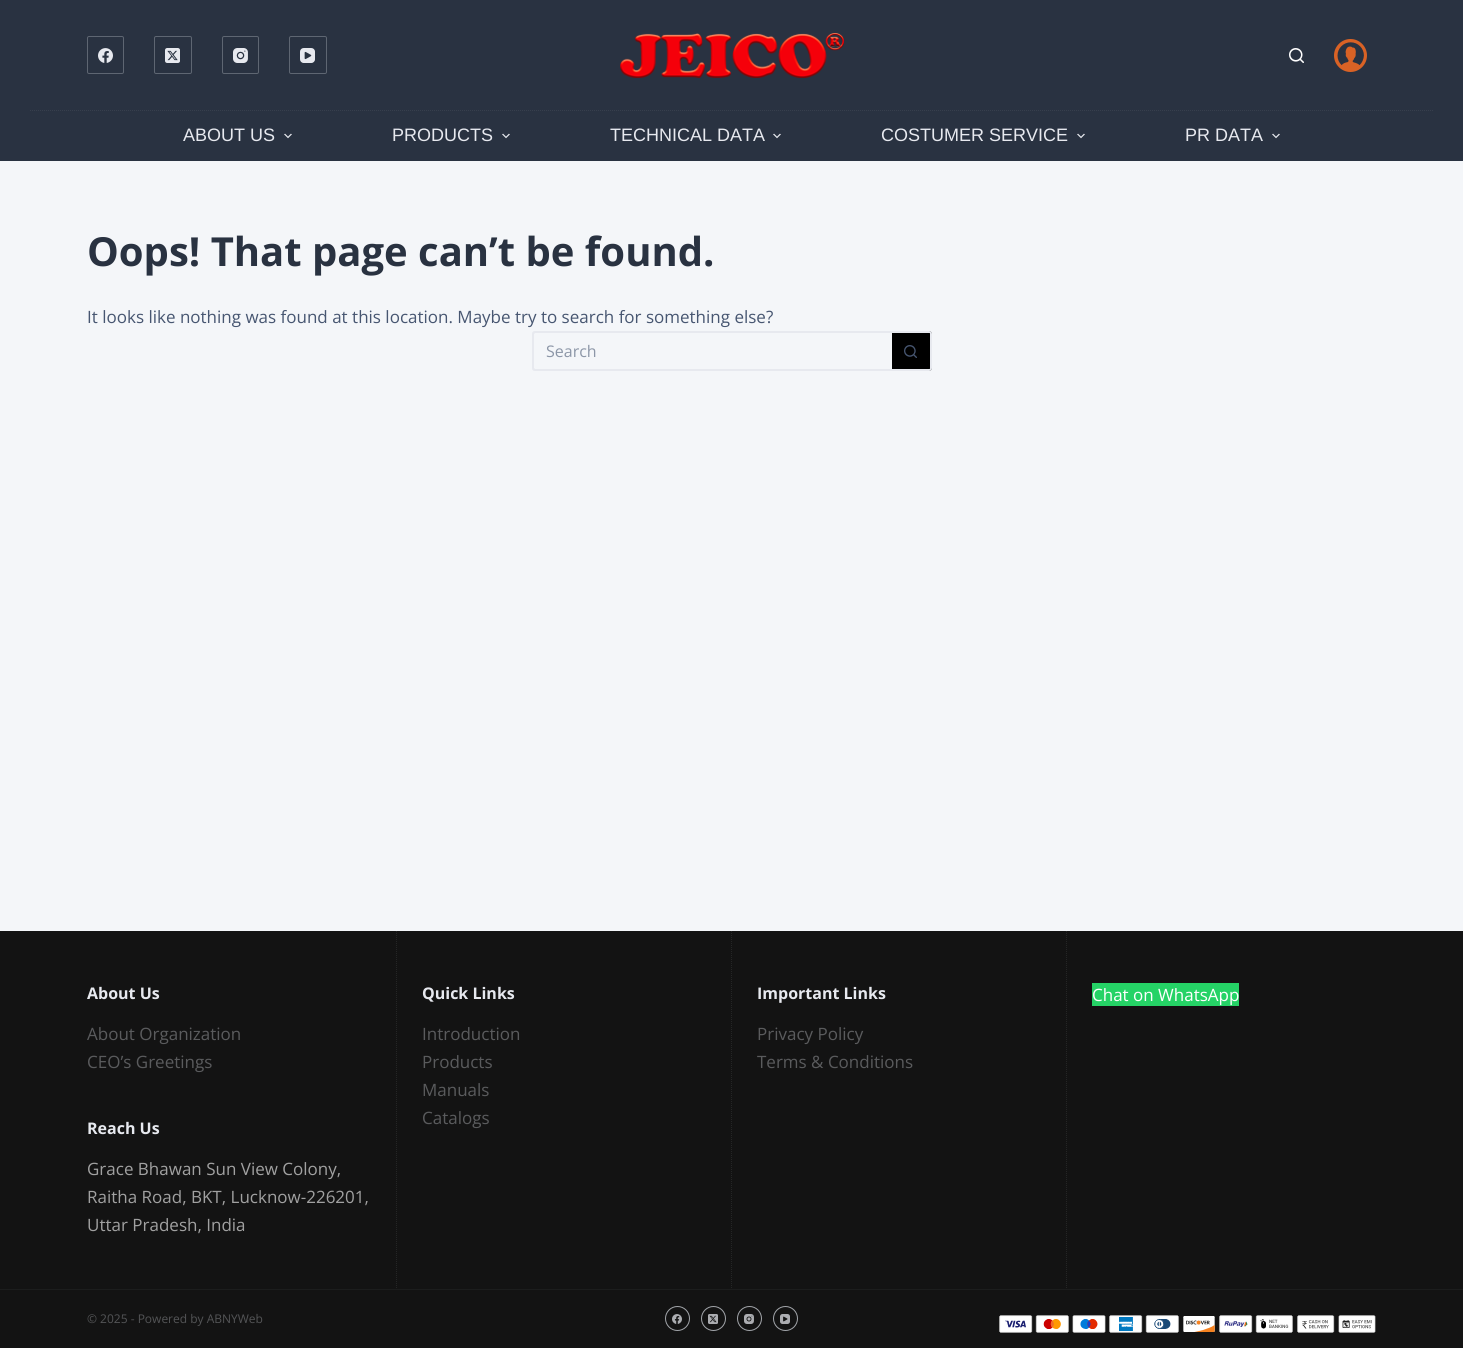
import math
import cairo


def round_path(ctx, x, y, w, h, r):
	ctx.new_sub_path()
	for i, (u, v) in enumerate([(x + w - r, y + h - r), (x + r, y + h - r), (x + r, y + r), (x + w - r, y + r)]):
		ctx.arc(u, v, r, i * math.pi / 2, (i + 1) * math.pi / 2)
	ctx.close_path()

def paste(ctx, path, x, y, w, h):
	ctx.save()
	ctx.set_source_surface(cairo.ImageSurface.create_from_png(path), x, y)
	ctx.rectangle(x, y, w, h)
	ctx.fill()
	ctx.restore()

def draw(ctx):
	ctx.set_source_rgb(0.957, 0.961, 0.973)
	ctx.paint()
	ctx.set_source_rgb(0.161, 0.196, 0.255)
	ctx.rectangle(0, 0, 1463, 161)
	ctx.fill()
	round_path(ctx, 87.5, 36.5, 36, 37, 1.5)
	ctx.set_source_rgb(0.369, 0.4, 0.447)
	ctx.set_line_width(1)
	ctx.stroke()
	paste(ctx, 'media/1.png', 98, 48, 15, 15)
	round_path(ctx, 154.5, 36.5, 37, 37, 1.5)
	ctx.stroke()
	paste(ctx, 'media/2.png', 165, 48, 15, 15)
	round_path(ctx, 222.5, 36.5, 36, 37, 1.5)
	ctx.stroke()
	paste(ctx, 'media/3.png', 233, 48, 15, 15)
	round_path(ctx, 289.5, 36.5, 37, 37, 1.5)
	ctx.stroke()
	paste(ctx, 'media/4.png', 300, 48, 15, 15)
	paste(ctx, 'media/5.png', 620, 33, 224, 45)
	paste(ctx, 'media/6.png', 1289, 48, 15, 15)
	paste(ctx, 'media/7.png', 1334, 39, 33, 33)
	ctx.new_path()
	ctx.move_to(30, 110.5)
	ctx.line_to(1433, 110.5)
	ctx.set_source_rgb(0.216, 0.247, 0.302)
	ctx.set_dash([1, 1])
	ctx.stroke()
	ctx.select_font_face('Liberation Sans')
	ctx.set_font_size(18)
	ctx.set_source_rgb(0.906, 0.914, 0.937)
	ctx.move_to(183, 141)
	ctx.show_text('ABOUT US')
	paste(ctx, 'media/8.png', 284, 133, 8, 6)
	ctx.move_to(392, 141)
	ctx.show_text('PRODUCTS')
	paste(ctx, 'media/8.png', 502, 133, 8, 6)
	ctx.move_to(610, 141)
	ctx.show_text('TECHNICAL DATA')
	paste(ctx, 'media/8.png', 773, 133, 8, 6)
	ctx.move_to(881, 141)
	ctx.show_text('COSTUMER SERVICE')
	paste(ctx, 'media/8.png', 1077, 133, 8, 6)
	ctx.move_to(1185, 141)
	ctx.show_text('PR DATA')
	paste(ctx, 'media/8.png', 1272, 133, 8, 6)
	ctx.select_font_face('Open Sans', cairo.FONT_SLANT_NORMAL, cairo.FONT_WEIGHT_BOLD)
	ctx.set_font_size(40)
	ctx.set_source_rgb(0.161, 0.196, 0.255)
	ctx.move_to(87, 266)
	ctx.show_text('Oops! That page can’t be found.')
	ctx.select_font_face('Open Sans')
	ctx.set_font_size(17)
	ctx.set_source_rgb(0.278, 0.337, 0.443)
	ctx.move_to(87, 323)
	ctx.show_text('It looks like nothing was found at this location. Maybe try to search for something else?')
	ctx.set_source_rgb(0.906, 0.914, 0.937)
	ctx.set_fill_rule(cairo.FILL_RULE_EVEN_ODD)
	ctx.new_path()
	ctx.move_to(535, 331)
	ctx.line_to(892, 331)
	ctx.line_to(892, 371)
	ctx.line_to(535, 371)
	ctx.curve_to(533, 371, 532, 370, 532, 368)
	ctx.line_to(532, 334)
	ctx.curve_to(532, 332, 533, 331, 535, 331)
	ctx.close_path()
	ctx.move_to(535, 333)
	ctx.line_to(892, 333)
	ctx.line_to(892, 369)
	ctx.line_to(535, 369)
	ctx.line_to(534, 368)
	ctx.line_to(534, 334)
	ctx.close_path()
	ctx.fill()
	ctx.set_font_size(16)
	ctx.set_source_rgb(0.549, 0.588, 0.655)
	ctx.move_to(546, 357)
	ctx.show_text('Search')
	ctx.set_source_rgb(0, 0, 0)
	ctx.new_path()
	ctx.move_to(892, 331)
	ctx.line_to(929, 331)
	ctx.curve_to(930.5, 331, 932, 332.5, 932, 334)
	ctx.line_to(932, 368)
	ctx.curve_to(932, 369.5, 930.5, 371, 929, 371)
	ctx.line_to(892, 371)
	ctx.close_path()
	ctx.fill()
	ctx.set_source_rgb(0.906, 0.914, 0.937)
	ctx.new_path()
	ctx.move_to(892, 331)
	ctx.line_to(929, 331)
	ctx.curve_to(931, 331, 932, 332, 932, 334)
	ctx.line_to(932, 368)
	ctx.curve_to(932, 370, 931, 371, 929, 371)
	ctx.line_to(892, 371)
	ctx.close_path()
	ctx.move_to(892, 333)
	ctx.line_to(929, 333)
	ctx.curve_to(930, 333, 930, 333, 930, 334)
	ctx.line_to(930, 368)
	ctx.curve_to(930, 369, 930, 369, 929, 369)
	ctx.line_to(892, 369)
	ctx.close_path()
	ctx.fill()
	paste(ctx, 'media/9.png', 904, 345, 13, 13)
	ctx.set_source_rgb(0.075, 0.078, 0.078)
	ctx.rectangle(0, 931, 1463, 358)
	ctx.fill()
	ctx.select_font_face('Open Sans', cairo.FONT_SLANT_NORMAL, cairo.FONT_WEIGHT_BOLD)
	ctx.set_source_rgb(0.906, 0.914, 0.937)
	ctx.move_to(87, 999)
	ctx.show_text('About Us')
	ctx.select_font_face('Open Sans')
	ctx.set_font_size(17)
	ctx.set_source_rgb(0.353, 0.357, 0.365)
	ctx.move_to(87, 1040)
	ctx.show_text('About Organization')
	ctx.move_to(87, 1068)
	ctx.show_text('CEO’s Greetings')
	ctx.new_path()
	ctx.move_to(396.5, 931)
	ctx.line_to(396.5, 1289)
	ctx.set_source_rgb(0.145, 0.149, 0.149)
	ctx.stroke()
	ctx.select_font_face('Open Sans', cairo.FONT_SLANT_NORMAL, cairo.FONT_WEIGHT_BOLD)
	ctx.set_font_size(16)
	ctx.set_source_rgb(0.906, 0.914, 0.937)
	ctx.move_to(87, 1134)
	ctx.show_text('Reach Us')
	ctx.select_font_face('Open Sans')
	ctx.set_font_size(17)
	ctx.set_source_rgb(0.631, 0.631, 0.631)
	for x, y, s in [
		(87, 1175, 'Grace Bhawan Sun View Colony,'),
		(87, 1203, 'Raitha Road, BKT, Lucknow-226201,'),
		(87, 1231, 'Uttar Pradesh, India'),
	]:
		ctx.move_to(x, y)
		ctx.show_text(s)
	ctx.select_font_face('Open Sans', cairo.FONT_SLANT_NORMAL, cairo.FONT_WEIGHT_BOLD)
	ctx.set_font_size(16)
	ctx.set_source_rgb(0.906, 0.914, 0.937)
	ctx.move_to(422, 999)
	ctx.show_text('Quick Links')
	ctx.select_font_face('Open Sans')
	ctx.set_font_size(17)
	ctx.set_source_rgb(0.353, 0.357, 0.365)
	for x, y, s in [
		(422, 1040, 'Introduction'),
		(422, 1068, 'Products'),
		(422, 1096, 'Manuals'),
		(422, 1124, 'Catalogs'),
	]:
		ctx.move_to(x, y)
		ctx.show_text(s)
	ctx.new_path()
	ctx.move_to(731.5, 931)
	ctx.line_to(731.5, 1289)
	ctx.set_source_rgb(0.145, 0.149, 0.149)
	ctx.stroke()
	ctx.select_font_face('Open Sans', cairo.FONT_SLANT_NORMAL, cairo.FONT_WEIGHT_BOLD)
	ctx.set_font_size(16)
	ctx.set_source_rgb(0.906, 0.914, 0.937)
	ctx.move_to(757, 999)
	ctx.show_text('Important Links')
	ctx.select_font_face('Open Sans')
	ctx.set_font_size(17)
	ctx.set_source_rgb(0.353, 0.357, 0.365)
	ctx.move_to(757, 1040)
	ctx.show_text('Privacy Policy')
	ctx.move_to(757, 1068)
	ctx.show_text('Terms & Conditions')
	ctx.new_path()
	ctx.move_to(1066.5, 931)
	ctx.line_to(1066.5, 1289)
	ctx.set_source_rgb(0.145, 0.149, 0.149)
	ctx.stroke()
	ctx.set_source_rgb(0.145, 0.827, 0.4)
	ctx.rectangle(1092, 983, 147, 23)
	ctx.fill()
	ctx.set_source_rgb(1, 1, 1)
	ctx.move_to(1092, 1001)
	ctx.show_text('Chat on WhatsApp')
	ctx.set_source_rgb(0.075, 0.078, 0.078)
	ctx.rectangle(0, 1290, 1463, 58)
	ctx.fill()
	ctx.set_source_rgb(0.11, 0.114, 0.114)
	ctx.rectangle(0, 1289, 1463, 1)
	ctx.fill()
	ctx.set_font_size(12)
	ctx.set_source_rgb(0.325, 0.329, 0.337)
	ctx.move_to(87, 1323)
	ctx.show_text('© 2025 - Powered by ABNYWeb')
	ctx.new_path()
	ctx.arc(677.5, 1318.5, 12, 0, 2 * math.pi)
	ctx.set_source_rgb(0.635, 0.647, 0.667)
	ctx.set_dash([])
	ctx.stroke()
	paste(ctx, 'media/10.png', 672, 1314, 10, 10)
	ctx.arc(713.5, 1318.5, 12, 0, 2 * math.pi)
	ctx.stroke()
	paste(ctx, 'media/11.png', 708, 1314, 10, 10)
	ctx.arc(749.5, 1318.5, 12, 0, 2 * math.pi)
	ctx.stroke()
	paste(ctx, 'media/12.png', 744, 1314, 10, 10)
	ctx.arc(785.5, 1318.5, 12, 0, 2 * math.pi)
	ctx.stroke()
	paste(ctx, 'media/13.png', 780, 1314, 10, 10)
	paste(ctx, 'media/14.png', 999, 1315, 377, 18)


surface = cairo.ImageSurface(cairo.FORMAT_RGB24, 1463, 1348)
ctx = cairo.Context(surface)
options = cairo.FontOptions()
options.set_hint_metrics(cairo.HINT_METRICS_OFF)
options.set_hint_style(cairo.HINT_STYLE_NONE)
ctx.set_font_options(options)
ctx.set_miter_limit(4)
draw(ctx)
surface.write_to_png('image.png')
